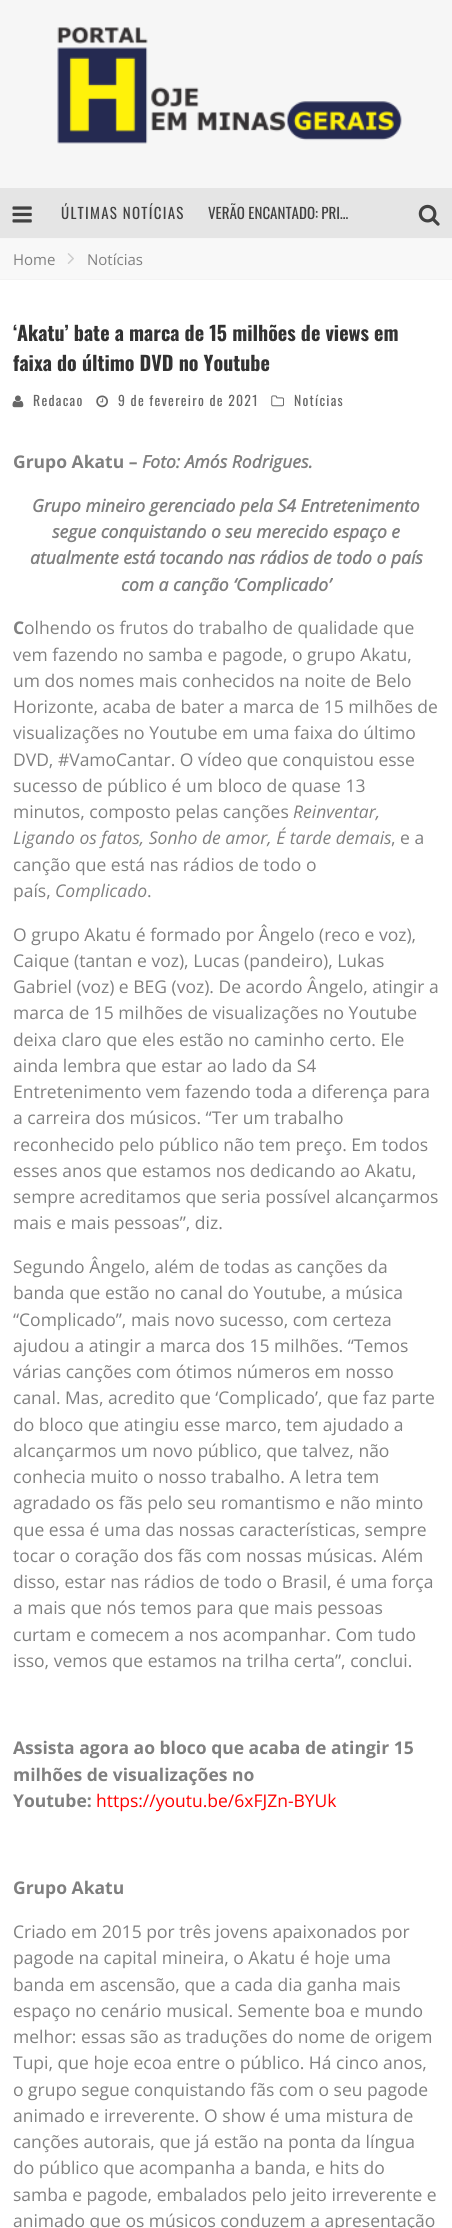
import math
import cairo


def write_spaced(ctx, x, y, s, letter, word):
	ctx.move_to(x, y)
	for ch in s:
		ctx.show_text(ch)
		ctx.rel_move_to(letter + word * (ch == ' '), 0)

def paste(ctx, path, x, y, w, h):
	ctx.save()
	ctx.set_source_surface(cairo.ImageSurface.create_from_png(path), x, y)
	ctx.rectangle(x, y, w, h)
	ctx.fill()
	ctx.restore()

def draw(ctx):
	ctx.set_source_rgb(1, 1, 1)
	ctx.paint()
	ctx.set_source_rgb(0.961, 0.961, 0.961)
	ctx.rectangle(0, 0, 452, 239)
	ctx.fill()
	paste(ctx, 'media/1.png', 57, 26, 345, 118)
	ctx.set_source_rgb(0.898, 0.898, 0.898)
	ctx.rectangle(0, 188, 452, 50)
	ctx.fill()
	paste(ctx, 'media/2.png', 12, 206, 20, 17)
	ctx.select_font_face('Oswald')
	ctx.set_font_size(15)
	ctx.set_source_rgb(0.259, 0.259, 0.259)
	write_spaced(ctx, 61, 219, 'ÚLTIMAS NOTÍCIAS', 1.25, 0)
	ctx.move_to(208, 219)
	ctx.show_text('VERÃO ENCANTADO: PRI…')
	paste(ctx, 'media/3.png', 418, 204, 22, 22)
	ctx.set_source_rgb(0.969, 0.969, 0.969)
	ctx.rectangle(0, 239, 452, 40)
	ctx.fill()
	ctx.set_source_rgb(0.953, 0.953, 0.953)
	ctx.rectangle(0, 279, 452, 1)
	ctx.fill()
	ctx.select_font_face('Open Sans')
	ctx.set_source_rgb(0.502, 0.502, 0.502)
	ctx.move_to(13, 265)
	ctx.show_text('Home')
	paste(ctx, 'media/4.png', 67, 253, 7, 11)
	ctx.move_to(87, 265)
	ctx.show_text('Notícias')
	ctx.select_font_face('Oswald', cairo.FONT_SLANT_NORMAL, cairo.FONT_WEIGHT_BOLD)
	ctx.set_font_size(20)
	ctx.set_source_rgb(0.2, 0.2, 0.2)
	ctx.move_to(13, 341)
	ctx.show_text('‘Akatu’ bate a marca de 15 milhões de views em')
	ctx.move_to(13, 371)
	ctx.show_text('faixa do último DVD no Youtube')
	paste(ctx, 'media/5.png', 12, 395, 12, 13)
	ctx.select_font_face('Oswald')
	ctx.set_font_size(13.75)
	ctx.set_source_rgb(0.404, 0.404, 0.404)
	write_spaced(ctx, 33, 406, 'Redacao', 1.25, 0)
	paste(ctx, 'media/6.png', 96, 395, 12, 13)
	write_spaced(ctx, 118, 406, '9 de fevereiro de 2021', 1.25, 0)
	paste(ctx, 'media/7.png', 271, 395, 13, 12)
	write_spaced(ctx, 294, 406, 'Notícias', 1.25, 0)
	ctx.select_font_face('Open Sans', cairo.FONT_SLANT_NORMAL, cairo.FONT_WEIGHT_BOLD)
	ctx.set_font_size(17.5)
	ctx.set_source_rgb(0.502, 0.502, 0.502)
	ctx.move_to(13, 468)
	ctx.show_text('Grupo Akatu –')
	ctx.select_font_face('Open Sans', cairo.FONT_SLANT_ITALIC, cairo.FONT_WEIGHT_BOLD)
	for x, y, s in [
		(142, 468, 'Foto: Amós Rodrigues.'),
		(32, 512, 'Grupo mineiro gerenciado pela S4 Entretenimento'),
		(52, 538, 'segue conquistando o seu merecido espaço e'),
		(30, 564, 'atualmente está tocando nas rádios de todo o país'),
		(121, 591, 'com a canção ‘Complicado’'),
	]:
		ctx.move_to(x, y)
		ctx.show_text(s)
	ctx.select_font_face('Open Sans', cairo.FONT_SLANT_NORMAL, cairo.FONT_WEIGHT_BOLD)
	ctx.move_to(13, 634)
	ctx.show_text('C')
	ctx.select_font_face('Open Sans')
	for x, y, s in [
		(24, 634, 'olhendo os frutos do trabalho de qualidade que'),
		(13, 661, 'vem fazendo no samba e pagode, o grupo Akatu,'),
		(13, 687, 'um dos nomes mais conhecidos na noite de Belo'),
		(13, 713, 'Horizonte, acaba de bater a marca de 15 milhões de'),
		(13, 739, 'visualizações no Youtube em uma faixa do último'),
		(13, 766, 'DVD, #VamoCantar. O vídeo que conquistou esse'),
		(13, 792, 'sucesso de público é um bloco de quase 13'),
		(13, 818, 'minutos, composto pelas canções'),
	]:
		ctx.move_to(x, y)
		ctx.show_text(s)
	ctx.select_font_face('Open Sans', cairo.FONT_SLANT_ITALIC)
	ctx.move_to(293, 818)
	ctx.show_text('Reinventar,')
	ctx.move_to(13, 844)
	ctx.show_text('Ligando os fatos, Sonho de amor, É tarde demais')
	ctx.select_font_face('Open Sans')
	for x, y, s in [
		(391, 844, ', e a'),
		(13, 871, 'canção que está nas rádios de todo o'),
		(13, 897, 'país,'),
	]:
		ctx.move_to(x, y)
		ctx.show_text(s)
	ctx.select_font_face('Open Sans', cairo.FONT_SLANT_ITALIC)
	ctx.move_to(55, 897)
	ctx.show_text('Complicado')
	ctx.select_font_face('Open Sans')
	for x, y, s in [
		(147, 897, '.'),
		(13, 941, 'O grupo Akatu é formado por Ângelo (reco e voz),'),
		(13, 967, 'Caique (tantan e voz), Lucas (pandeiro), Lukas'),
		(13, 993, 'Gabriel (voz) e BEG (voz). De acordo Ângelo, atingir a'),
		(13, 1019, 'marca de 15 milhões de visualizações no Youtube'),
		(13, 1046, 'deixa claro que eles estão no caminho certo. Ele'),
		(13, 1072, 'ainda lembra que estar ao lado da S4'),
		(13, 1098, 'Entretenimento vem fazendo toda a diferença para'),
		(13, 1124, 'a carreira dos músicos. “Ter um trabalho'),
		(13, 1151, 'reconhecido pelo público não tem preço. Em todos'),
		(13, 1177, 'esses anos que estamos nos dedicando ao Akatu,'),
		(13, 1203, 'sempre acreditamos que seria possível alcançarmos'),
		(13, 1229, 'mais e mais pessoas”, diz.'),
		(13, 1273, 'Segundo Ângelo, além de todas as canções da'),
		(13, 1299, 'banda que estão no canal do Youtube, a música'),
		(13, 1326, '“Complicado”, mais novo sucesso, com certeza'),
		(13, 1352, 'ajudou a atingir a marca dos 15 milhões. “Temos'),
		(13, 1378, 'várias canções com ótimos números em nosso'),
		(13, 1404, 'canal. Mas, acredito que ‘Complicado’, que faz parte'),
		(13, 1431, 'do bloco que atingiu esse marco, tem ajudado a'),
		(13, 1457, 'alcançarmos um novo público, que talvez, não'),
		(13, 1483, 'conhecia muito o nosso trabalho. A letra tem'),
		(13, 1509, 'agradado os fãs pelo seu romantismo e não minto'),
		(13, 1536, 'que essa é uma das nossas características, sempre'),
		(13, 1562, 'tocar o coração dos fãs com nossas músicas. Além'),
		(13, 1588, 'disso, estar nas rádios de todo o Brasil, é uma força'),
		(13, 1614, 'a mais que nós temos para que mais pessoas'),
		(13, 1641, 'curtam e comecem a nos acompanhar. Com tudo'),
		(13, 1667, 'isso, vemos que estamos na trilha certa”, conclui.'),
	]:
		ctx.move_to(x, y)
		ctx.show_text(s)
	ctx.select_font_face('Open Sans', cairo.FONT_SLANT_NORMAL, cairo.FONT_WEIGHT_BOLD)
	for x, y, s in [
		(13, 1754, 'Assista agora ao bloco que acaba de atingir 15'),
		(13, 1781, 'milhões de visualizações no'),
		(13, 1807, 'Youtube:'),
	]:
		ctx.move_to(x, y)
		ctx.show_text(s)
	ctx.select_font_face('Open Sans')
	ctx.set_source_rgb(1, 0, 0)
	ctx.move_to(96, 1807)
	ctx.show_text('https://youtu.be/6xFJZn-BYUk')
	ctx.select_font_face('Open Sans', cairo.FONT_SLANT_NORMAL, cairo.FONT_WEIGHT_BOLD)
	ctx.set_source_rgb(0.502, 0.502, 0.502)
	ctx.move_to(13, 1894)
	ctx.show_text('Grupo Akatu')
	ctx.select_font_face('Open Sans')
	for x, y, s in [
		(13, 1938, 'Criado em 2015 por três jovens apaixonados por'),
		(13, 1964, 'pagode na capital mineira, o Akatu é hoje uma'),
		(13, 1991, 'banda em ascensão, que a cada dia ganha mais'),
		(13, 2017, 'espaço no cenário musical. Semente boa e mundo'),
		(13, 2043, 'melhor: essas são as traduções do nome de origem'),
		(13, 2069, 'Tupi, que hoje ecoa entre o público. Há cinco anos,'),
		(13, 2096, 'o grupo segue conquistando fãs com o seu pagode'),
		(13, 2122, 'animado e irreverente. O show é uma mistura de'),
		(13, 2148, 'canções autorais, que já estão na ponta da língua'),
		(13, 2174, 'do público que acompanha a banda, e hits do'),
		(13, 2201, 'samba e pagode, embalados pelo jeito irreverente e'),
		(13, 2227, 'animado que os músicos conduzem a apresentação'),
	]:
		ctx.move_to(x, y)
		ctx.show_text(s)


surface = cairo.ImageSurface(cairo.FORMAT_RGB24, 452, 2228)
ctx = cairo.Context(surface)
options = cairo.FontOptions()
options.set_hint_metrics(cairo.HINT_METRICS_OFF)
options.set_hint_style(cairo.HINT_STYLE_NONE)
ctx.set_font_options(options)
ctx.set_miter_limit(4)
draw(ctx)
surface.write_to_png('image.png')
